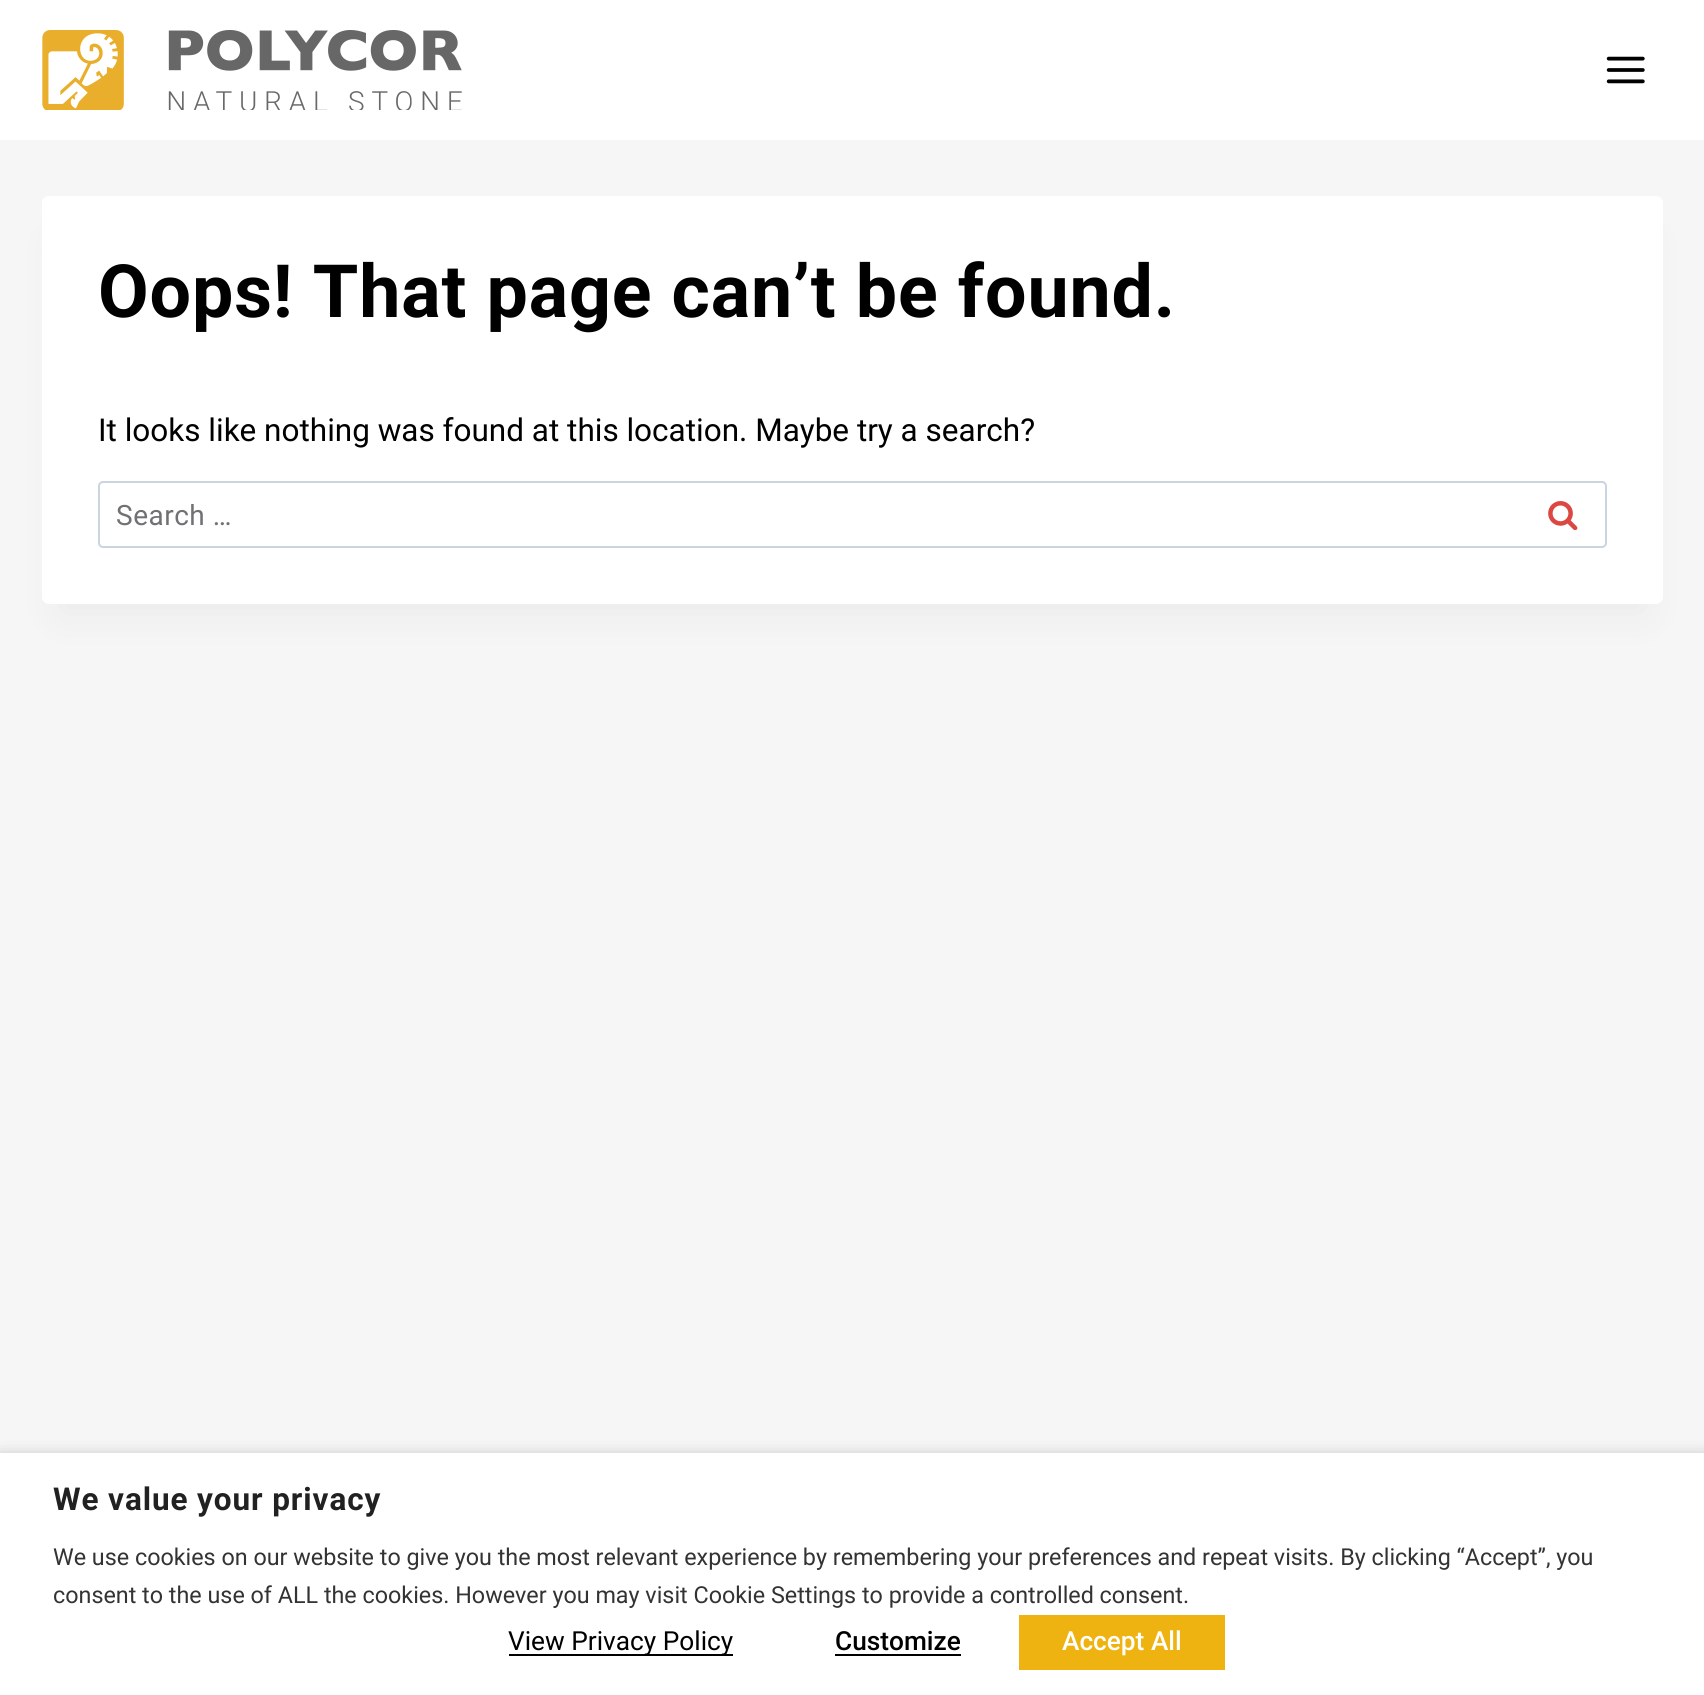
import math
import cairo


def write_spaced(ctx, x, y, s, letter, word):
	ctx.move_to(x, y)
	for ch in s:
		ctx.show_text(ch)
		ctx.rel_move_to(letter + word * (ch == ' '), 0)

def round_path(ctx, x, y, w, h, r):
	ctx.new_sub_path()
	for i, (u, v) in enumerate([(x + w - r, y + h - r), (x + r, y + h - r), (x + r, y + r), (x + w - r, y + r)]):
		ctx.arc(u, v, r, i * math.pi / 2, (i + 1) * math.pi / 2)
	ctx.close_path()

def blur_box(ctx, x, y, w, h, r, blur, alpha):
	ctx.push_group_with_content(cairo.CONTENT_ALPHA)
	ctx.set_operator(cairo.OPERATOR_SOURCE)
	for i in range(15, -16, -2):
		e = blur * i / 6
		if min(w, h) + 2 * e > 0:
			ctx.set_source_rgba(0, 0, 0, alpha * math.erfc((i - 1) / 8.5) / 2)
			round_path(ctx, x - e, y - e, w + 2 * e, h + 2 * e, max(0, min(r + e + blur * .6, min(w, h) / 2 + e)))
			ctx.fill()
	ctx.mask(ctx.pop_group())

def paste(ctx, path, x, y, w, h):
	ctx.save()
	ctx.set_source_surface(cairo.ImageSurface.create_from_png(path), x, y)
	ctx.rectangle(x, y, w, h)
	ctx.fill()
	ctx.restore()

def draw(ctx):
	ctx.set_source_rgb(0.961, 0.961, 0.961)
	ctx.paint()
	ctx.set_source_rgb(1, 1, 1)
	ctx.rectangle(0, 0, 1704, 140)
	ctx.fill()
	paste(ctx, 'media/1.png', 42, 30, 420, 80)
	paste(ctx, 'media/2.png', 1606, 56, 39, 28)
	ctx.set_source_rgb(0, 0, 0)
	blur_box(ctx, 60, 240, 1585, 373, 0, 22, 0.05)
	ctx.set_source_rgb(1, 1, 1)
	round_path(ctx, 42, 196, 1621, 408, 7)
	ctx.fill()
	ctx.select_font_face('Roboto', cairo.FONT_SLANT_NORMAL, cairo.FONT_WEIGHT_BOLD)
	ctx.set_font_size(73.5)
	ctx.set_source_rgb(0, 0, 0)
	write_spaced(ctx, 98, 317, 'Oops! That page can’t be found.', 0.9, 0)
	ctx.select_font_face('Roboto')
	ctx.set_font_size(31.5)
	ctx.move_to(98, 441)
	ctx.show_text('It looks like nothing was found at this location. Maybe try a search?')
	round_path(ctx, 99, 482, 1507, 65, 4)
	ctx.set_source_rgb(0.796, 0.835, 0.878)
	ctx.stroke()
	ctx.set_font_size(28)
	ctx.set_source_rgb(0.443, 0.439, 0.451)
	write_spaced(ctx, 116, 525, 'Search …', 0.5, 0)
	paste(ctx, 'media/3.png', 1548, 501, 30, 29)
	ctx.set_source_rgb(0, 0, 0)
	blur_box(ctx, 0, 1461, 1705, 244, 0, 9, 0.5)
	ctx.set_source_rgb(1, 1, 1)
	ctx.rectangle(0, 1453, 1704, 242)
	ctx.fill()
	ctx.select_font_face('Roboto', cairo.FONT_SLANT_NORMAL, cairo.FONT_WEIGHT_BOLD)
	ctx.set_font_size(31.5)
	ctx.set_source_rgb(0.129, 0.129, 0.129)
	write_spaced(ctx, 53, 1510, 'We value your privacy', 0.9, 0)
	ctx.select_font_face('Roboto')
	ctx.set_font_size(23.33)
	ctx.set_source_rgb(0.2, 0.2, 0.2)
	ctx.move_to(53, 1565)
	ctx.show_text('We use cookies on our website to give you the most relevant experience by remembering your preferences and repeat visits. By clicking “Accept”, you')
	ctx.move_to(53, 1603)
	ctx.show_text('consent to the use of ALL the cookies. However you may visit Cookie Settings to provide a controlled consent.')
	ctx.set_source_rgb(0, 0, 0)
	ctx.rectangle(509, 1654, 224, 2)
	ctx.fill()
	ctx.set_font_size(26.25)
	ctx.move_to(508, 1650)
	ctx.show_text('View Privacy Policy')
	ctx.select_font_face('Roboto Medium')
	ctx.move_to(835, 1650)
	ctx.show_text('Customize')
	ctx.rectangle(835, 1654, 126, 2)
	ctx.fill()
	ctx.set_source_rgb(0.933, 0.702, 0.063)
	ctx.rectangle(1019, 1615, 206, 55)
	ctx.fill()
	ctx.set_source_rgb(1, 1, 1)
	ctx.move_to(1062, 1650)
	ctx.show_text('Accept All')


surface = cairo.ImageSurface(cairo.FORMAT_RGB24, 1704, 1695)
ctx = cairo.Context(surface)
options = cairo.FontOptions()
options.set_hint_metrics(cairo.HINT_METRICS_OFF)
options.set_hint_style(cairo.HINT_STYLE_NONE)
ctx.set_font_options(options)
ctx.set_miter_limit(4)
draw(ctx)
surface.write_to_png('image.png')
